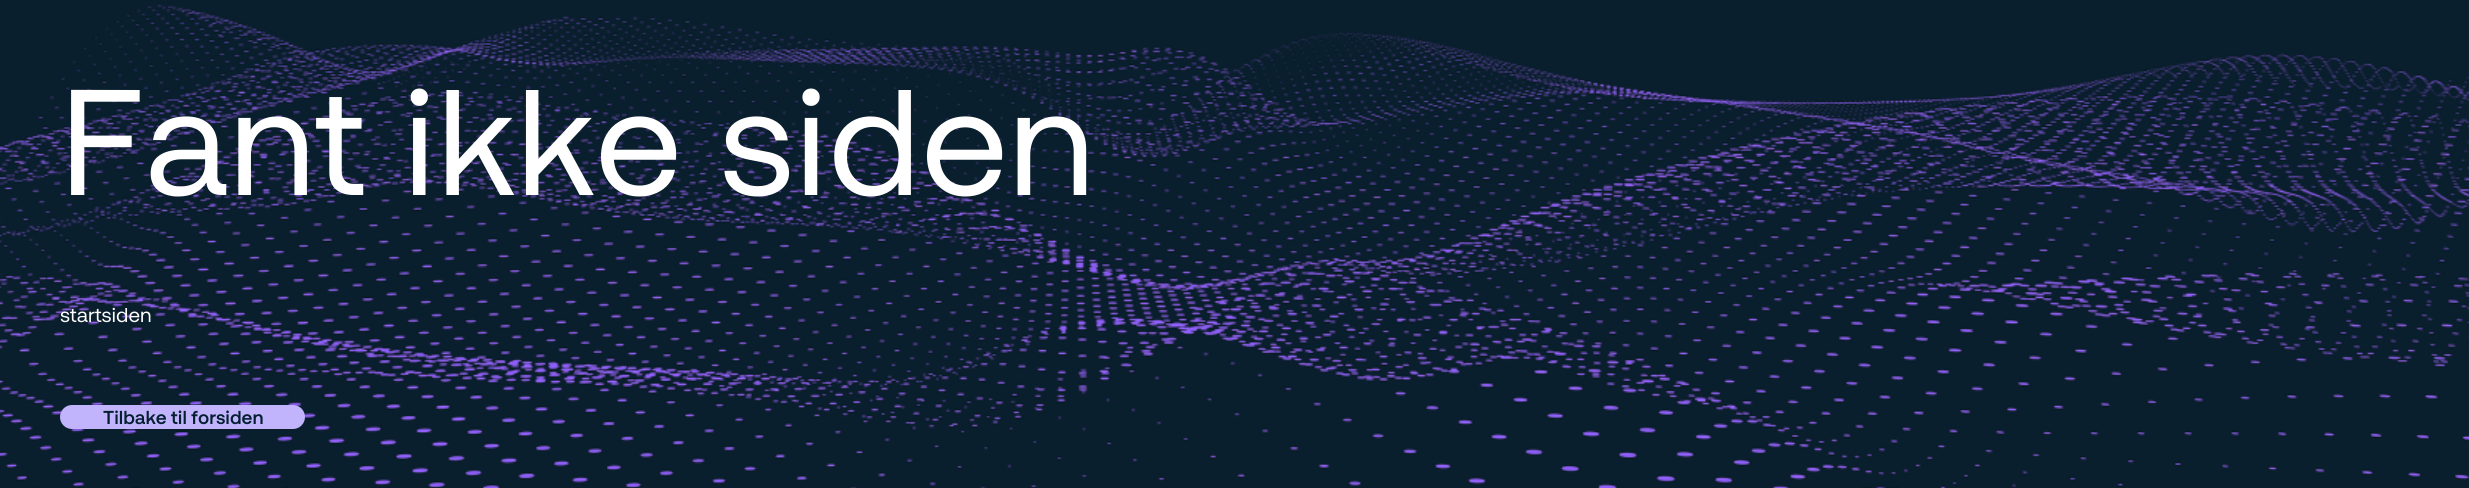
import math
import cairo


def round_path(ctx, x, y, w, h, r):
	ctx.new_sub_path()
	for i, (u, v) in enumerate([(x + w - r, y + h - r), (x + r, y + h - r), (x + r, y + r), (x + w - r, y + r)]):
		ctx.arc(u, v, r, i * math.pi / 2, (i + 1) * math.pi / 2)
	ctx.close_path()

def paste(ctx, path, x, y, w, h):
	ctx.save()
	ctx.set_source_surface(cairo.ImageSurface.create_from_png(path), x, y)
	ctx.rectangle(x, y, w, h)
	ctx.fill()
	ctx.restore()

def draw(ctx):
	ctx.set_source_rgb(1, 1, 1)
	ctx.paint()
	paste(ctx, 'media/1.png', 0, 0, 2469, 488)
	ctx.select_font_face('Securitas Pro')
	ctx.set_font_size(150)
	ctx.set_source_rgb(1, 1, 1)
	ctx.move_to(60, 195)
	ctx.show_text('Fant ikke siden')
	ctx.set_font_size(20)
	ctx.move_to(60, 322)
	ctx.show_text('startsiden')
	ctx.set_source_rgb(0.761, 0.706, 0.988)
	round_path(ctx, 61.5, 406.5, 242, 21, 10.5)
	ctx.fill_preserve()
	ctx.set_line_width(3)
	ctx.stroke()
	ctx.select_font_face('Securitas Pro', cairo.FONT_SLANT_NORMAL, cairo.FONT_WEIGHT_BOLD)
	ctx.set_font_size(18.75)
	ctx.set_source_rgb(0.012, 0.122, 0.188)
	ctx.move_to(103, 424)
	ctx.show_text('Tilbake til forsiden')


surface = cairo.ImageSurface(cairo.FORMAT_RGB24, 2469, 488)
ctx = cairo.Context(surface)
options = cairo.FontOptions()
options.set_hint_metrics(cairo.HINT_METRICS_OFF)
options.set_hint_style(cairo.HINT_STYLE_NONE)
ctx.set_font_options(options)
ctx.set_miter_limit(4)
draw(ctx)
surface.write_to_png('image.png')
